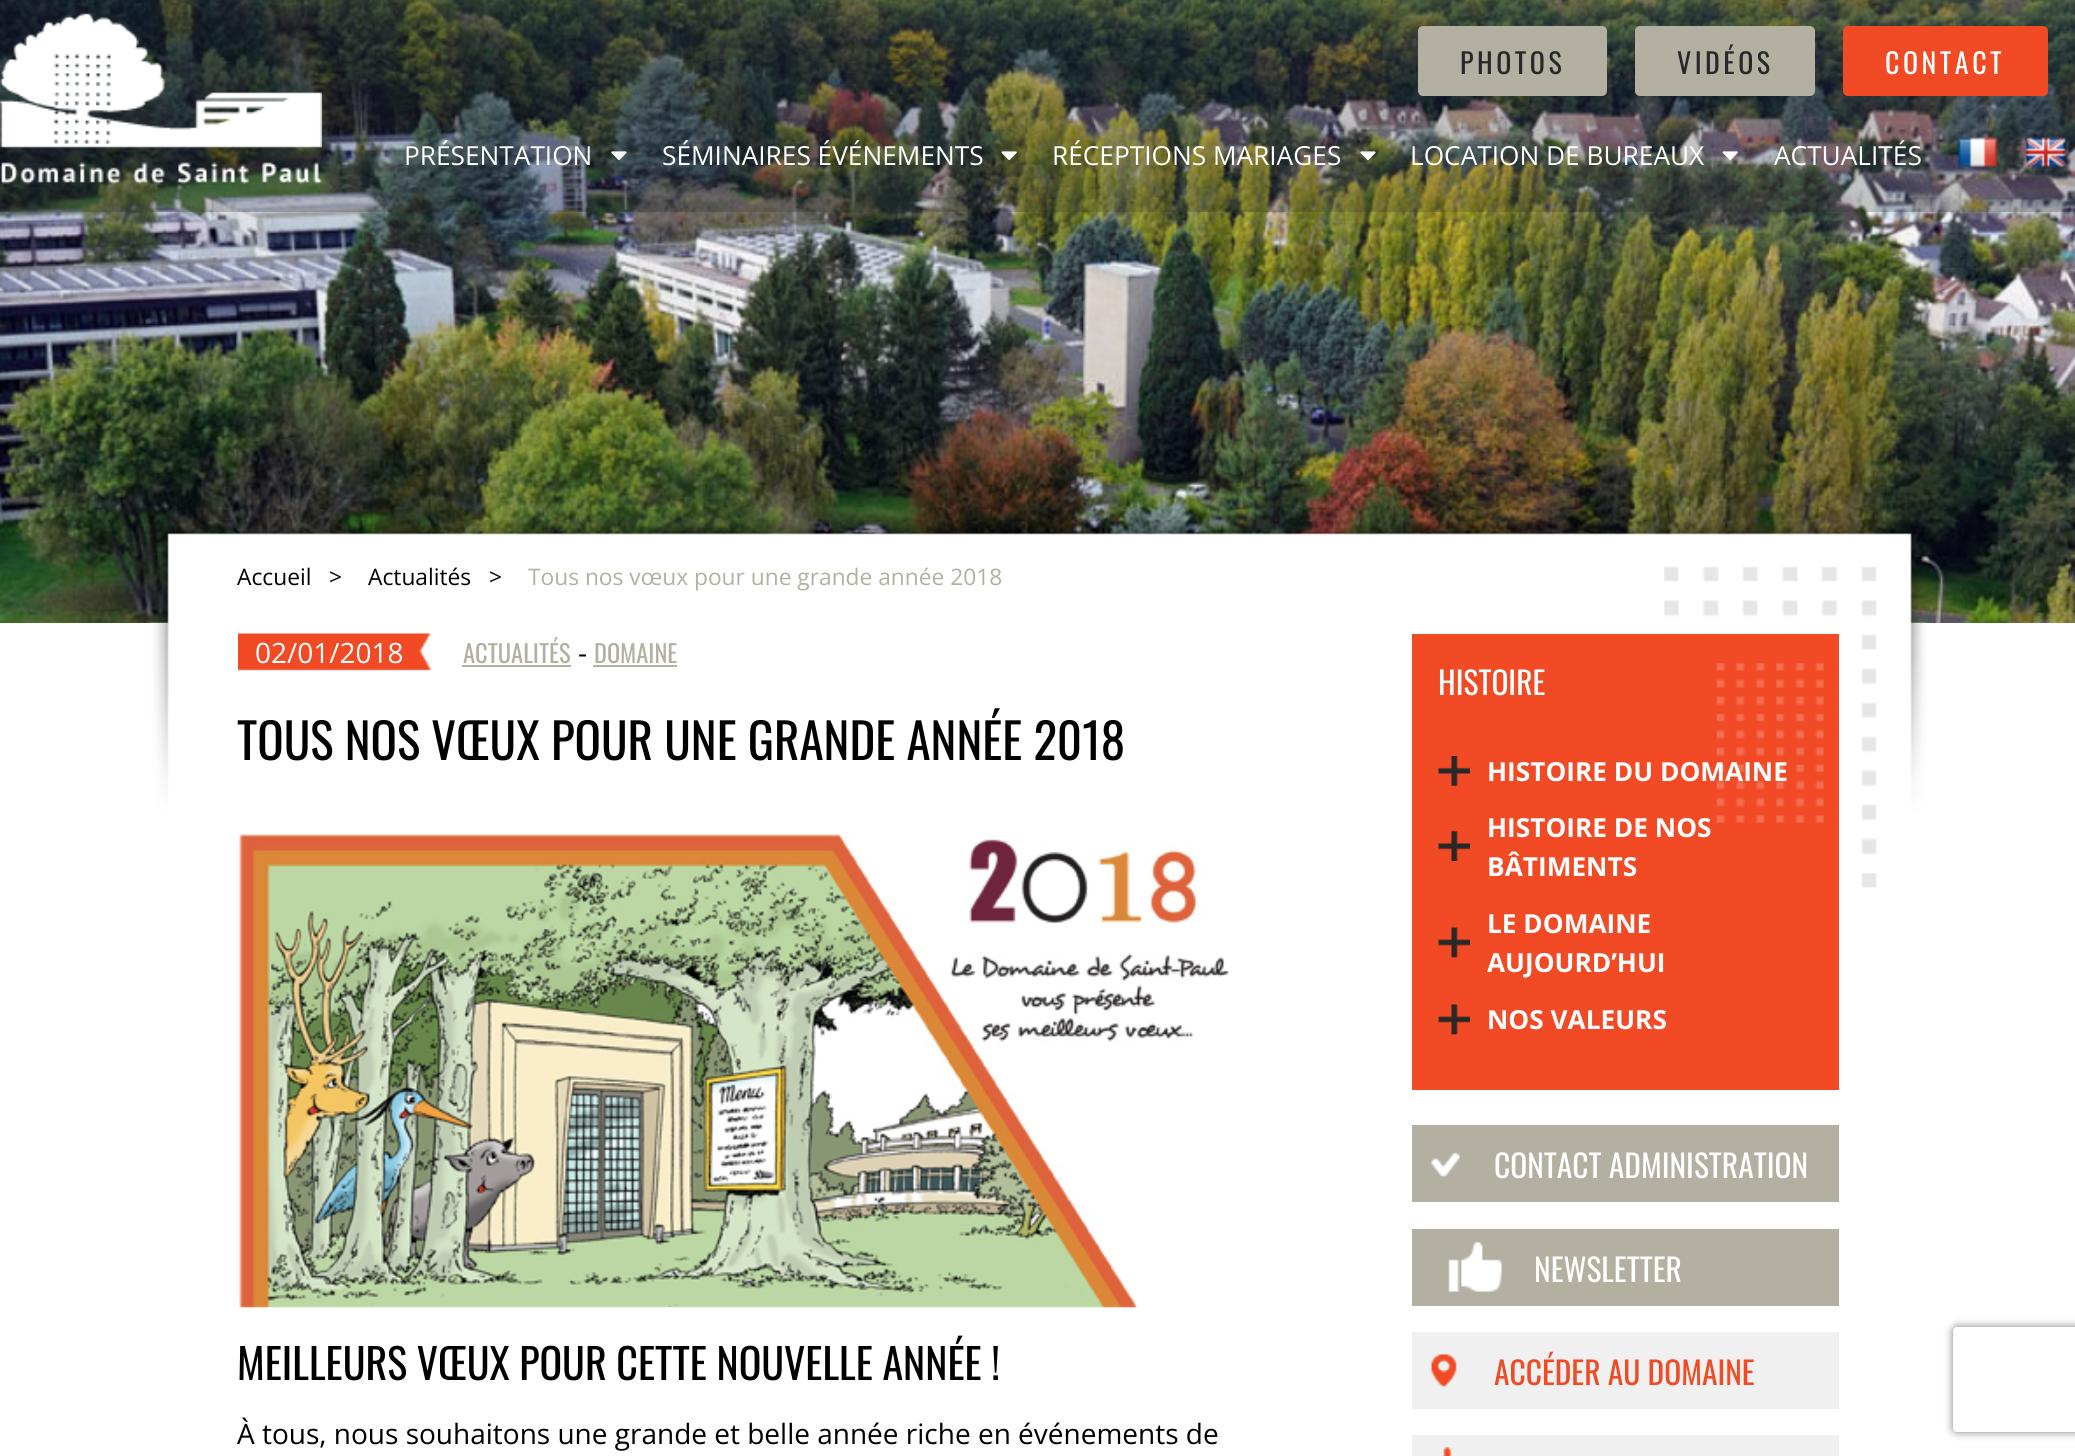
import math
import cairo


def write_spaced(ctx, x, y, s, letter, word):
	ctx.move_to(x, y)
	for ch in s:
		ctx.show_text(ch)
		ctx.rel_move_to(letter + word * (ch == ' '), 0)

def round_path(ctx, x, y, w, h, r):
	ctx.new_sub_path()
	for i, (u, v) in enumerate([(x + w - r, y + h - r), (x + r, y + h - r), (x + r, y + r), (x + w - r, y + r)]):
		ctx.arc(u, v, r, i * math.pi / 2, (i + 1) * math.pi / 2)
	ctx.close_path()

def blur_box(ctx, x, y, w, h, r, blur, alpha):
	ctx.push_group_with_content(cairo.CONTENT_ALPHA)
	ctx.set_operator(cairo.OPERATOR_SOURCE)
	for i in range(15, -16, -2):
		e = blur * i / 6
		if min(w, h) + 2 * e > 0:
			ctx.set_source_rgba(0, 0, 0, alpha * math.erfc((i - 1) / 8.5) / 2)
			round_path(ctx, x - e, y - e, w + 2 * e, h + 2 * e, max(0, min(r + e + blur * .6, min(w, h) / 2 + e)))
			ctx.fill()
	ctx.mask(ctx.pop_group())

def paste(ctx, path, x, y, w, h):
	ctx.save()
	ctx.set_source_surface(cairo.ImageSurface.create_from_png(path), x, y)
	ctx.rectangle(x, y, w, h)
	ctx.fill()
	ctx.restore()

def draw(ctx):
	ctx.set_source_rgb(1, 1, 1)
	ctx.paint()
	paste(ctx, 'media/8.png', 0, 0, 2075, 623)
	ctx.set_source_rgba(0.157, 0.157, 0.157, 0.25)
	ctx.rectangle(0, 0, 2075, 212)
	ctx.fill()
	paste(ctx, 'media/1.png', 0, 13, 322, 172)
	ctx.set_source_rgb(0.702, 0.69, 0.631)
	round_path(ctx, 1418, 26, 189, 70, 5)
	ctx.fill()
	ctx.select_font_face('Oswald')
	ctx.set_font_size(28)
	ctx.set_source_rgb(0.157, 0.157, 0.157)
	write_spaced(ctx, 1460, 74, 'PHOTOS', 3.5, 0)
	ctx.set_source_rgb(0.702, 0.69, 0.631)
	round_path(ctx, 1635, 26, 180, 70, 5)
	ctx.fill()
	ctx.set_source_rgb(0.157, 0.157, 0.157)
	write_spaced(ctx, 1677, 74, 'VIDÉOS', 3.5, 0)
	ctx.set_source_rgb(0.945, 0.29, 0.141)
	round_path(ctx, 1843, 26, 205, 70, 5)
	ctx.fill()
	ctx.set_source_rgb(1, 1, 1)
	write_spaced(ctx, 1885, 74, 'CONTACT', 3.5, 0)
	ctx.select_font_face('Open Sans')
	ctx.set_font_size(26.25)
	ctx.move_to(404, 165)
	ctx.show_text('PRÉSENTATION')
	paste(ctx, 'media/2.png', 611, 151, 16, 9)
	ctx.move_to(662, 165)
	ctx.show_text('SÉMINAIRES ÉVÉNEMENTS')
	paste(ctx, 'media/3.png', 1001, 151, 16, 9)
	ctx.move_to(1052, 165)
	ctx.show_text('RÉCEPTIONS MARIAGES')
	paste(ctx, 'media/4.png', 1360, 151, 16, 9)
	ctx.move_to(1410, 165)
	ctx.show_text('LOCATION DE BUREAUX')
	paste(ctx, 'media/5.png', 1722, 151, 16, 9)
	ctx.move_to(1774, 165)
	ctx.show_text('ACTUALITÉS')
	paste(ctx, 'media/6.png', 1957, 137, 41, 33)
	paste(ctx, 'media/7.png', 2025, 137, 42, 32)
	paste(ctx, 'media/9.png', 150, 520, 1777, 368)
	ctx.set_font_size(22.75)
	ctx.set_source_rgb(0, 0, 0)
	for x, y, s in [
		(237, 585, 'Accueil'),
		(329, 585, '>'),
		(368, 585, 'Actualités'),
		(489, 585, '>'),
	]:
		ctx.move_to(x, y)
		ctx.show_text(s)
	ctx.set_source_rgb(0.702, 0.69, 0.631)
	ctx.move_to(528, 585)
	ctx.show_text('Tous nos vœux pour une grande année 2018')
	paste(ctx, 'media/10.png', 238, 633, 193, 38)
	ctx.set_font_size(28)
	ctx.set_source_rgb(1, 1, 1)
	ctx.move_to(255, 663)
	ctx.show_text('02/01/2018')
	ctx.select_font_face('Oswald')
	ctx.set_font_size(24.5)
	ctx.set_source_rgb(0.702, 0.69, 0.631)
	ctx.move_to(463, 663)
	ctx.show_text('ACTUALITÉS')
	ctx.rectangle(462, 665, 109, 2)
	ctx.fill()
	ctx.select_font_face('Open Sans')
	ctx.set_font_size(28)
	ctx.set_source_rgb(0, 0, 0)
	ctx.move_to(578, 663)
	ctx.show_text('-')
	ctx.select_font_face('Oswald')
	ctx.set_font_size(24.5)
	ctx.set_source_rgb(0.702, 0.69, 0.631)
	ctx.move_to(594, 663)
	ctx.show_text('DOMAINE')
	ctx.rectangle(593, 665, 84, 2)
	ctx.fill()
	ctx.set_font_size(49)
	ctx.set_source_rgb(0, 0, 0)
	ctx.move_to(237, 760)
	ctx.show_text('TOUS NOS VŒUX POUR UNE GRANDE ANNÉE 2018')
	paste(ctx, 'media/11.png', 239, 834, 990, 474)
	ctx.set_font_size(42)
	ctx.move_to(237, 1380)
	ctx.show_text('MEILLEURS VŒUX POUR CETTE NOUVELLE ANNÉE !')
	ctx.select_font_face('Open Sans')
	ctx.set_font_size(28)
	ctx.move_to(237, 1444)
	ctx.show_text('À tous, nous souhaitons une grande et belle année riche en événements de')
	ctx.set_source_rgb(0.945, 0.29, 0.141)
	ctx.rectangle(1412, 634, 427, 456)
	ctx.fill()
	paste(ctx, 'media/12.png', 1716, 663, 108, 160)
	ctx.select_font_face('Oswald')
	ctx.set_font_size(31.5)
	ctx.set_source_rgb(1, 1, 1)
	ctx.move_to(1438, 695)
	ctx.show_text('HISTOIRE')
	paste(ctx, 'media/13.png', 1438, 756, 32, 30)
	ctx.select_font_face('Open Sans', cairo.FONT_SLANT_NORMAL, cairo.FONT_WEIGHT_BOLD)
	ctx.set_font_size(26.25)
	ctx.move_to(1487, 781)
	ctx.show_text('HISTOIRE DU DOMAINE')
	paste(ctx, 'media/14.png', 1438, 831, 32, 30)
	ctx.move_to(1487, 837)
	ctx.show_text('HISTOIRE DE NOS')
	ctx.move_to(1487, 876)
	ctx.show_text('BÂTIMENTS')
	paste(ctx, 'media/15.png', 1438, 927, 32, 31)
	ctx.move_to(1487, 933)
	ctx.show_text('LE DOMAINE')
	ctx.move_to(1487, 972)
	ctx.show_text('AUJOURD’HUI')
	paste(ctx, 'media/15.png', 1438, 1004, 32, 31)
	ctx.move_to(1487, 1029)
	ctx.show_text('NOS VALEURS')
	ctx.set_source_rgb(0.702, 0.69, 0.631)
	ctx.rectangle(1412, 1125, 427, 77)
	ctx.fill()
	paste(ctx, 'media/16.png', 1431, 1152, 29, 25)
	ctx.select_font_face('Oswald')
	ctx.set_font_size(31.5)
	ctx.set_source_rgb(1, 1, 1)
	ctx.move_to(1494, 1178)
	ctx.show_text('CONTACT ADMINISTRATION')
	ctx.set_source_rgb(0.702, 0.69, 0.631)
	ctx.rectangle(1412, 1229, 427, 77)
	ctx.fill()
	paste(ctx, 'media/17.png', 1448, 1242, 54, 50)
	ctx.set_source_rgb(1, 1, 1)
	ctx.move_to(1534, 1282)
	ctx.show_text('NEWSLETTER')
	ctx.set_source_rgb(0.941, 0.941, 0.941)
	ctx.rectangle(1412, 1332, 427, 77)
	ctx.fill()
	paste(ctx, 'media/18.png', 1431, 1354, 26, 33)
	ctx.set_source_rgb(0.945, 0.29, 0.141)
	ctx.move_to(1494, 1385)
	ctx.show_text('ACCÉDER AU DOMAINE')
	ctx.set_source_rgb(0.941, 0.941, 0.941)
	ctx.rectangle(1412, 1435, 427, 21)
	ctx.fill()
	paste(ctx, 'media/19.png', 1443, 1447, 9, 9)
	ctx.save()
	ctx.set_fill_rule(cairo.FILL_RULE_EVEN_ODD)
	ctx.new_path()
	ctx.move_to(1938, 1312)
	ctx.line_to(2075, 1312)
	ctx.line_to(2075, 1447)
	ctx.line_to(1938, 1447)
	ctx.close_path()
	ctx.move_to(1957, 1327)
	ctx.line_to(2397, 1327)
	ctx.curve_to(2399, 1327, 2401, 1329, 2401, 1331)
	ctx.line_to(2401, 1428)
	ctx.curve_to(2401, 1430, 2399, 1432, 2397, 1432)
	ctx.line_to(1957, 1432)
	ctx.curve_to(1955, 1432, 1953, 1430, 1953, 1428)
	ctx.line_to(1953, 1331)
	ctx.curve_to(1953, 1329, 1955, 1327, 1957, 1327)
	ctx.close_path()
	ctx.clip()
	ctx.set_source_rgb(0.502, 0.502, 0.502)
	blur_box(ctx, 1953, 1327, 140, 105, 4, 4.5, 1)
	ctx.restore()


surface = cairo.ImageSurface(cairo.FORMAT_RGB24, 2075, 1456)
ctx = cairo.Context(surface)
options = cairo.FontOptions()
options.set_hint_metrics(cairo.HINT_METRICS_OFF)
options.set_hint_style(cairo.HINT_STYLE_NONE)
ctx.set_font_options(options)
ctx.set_miter_limit(4)
draw(ctx)
surface.write_to_png('image.png')
